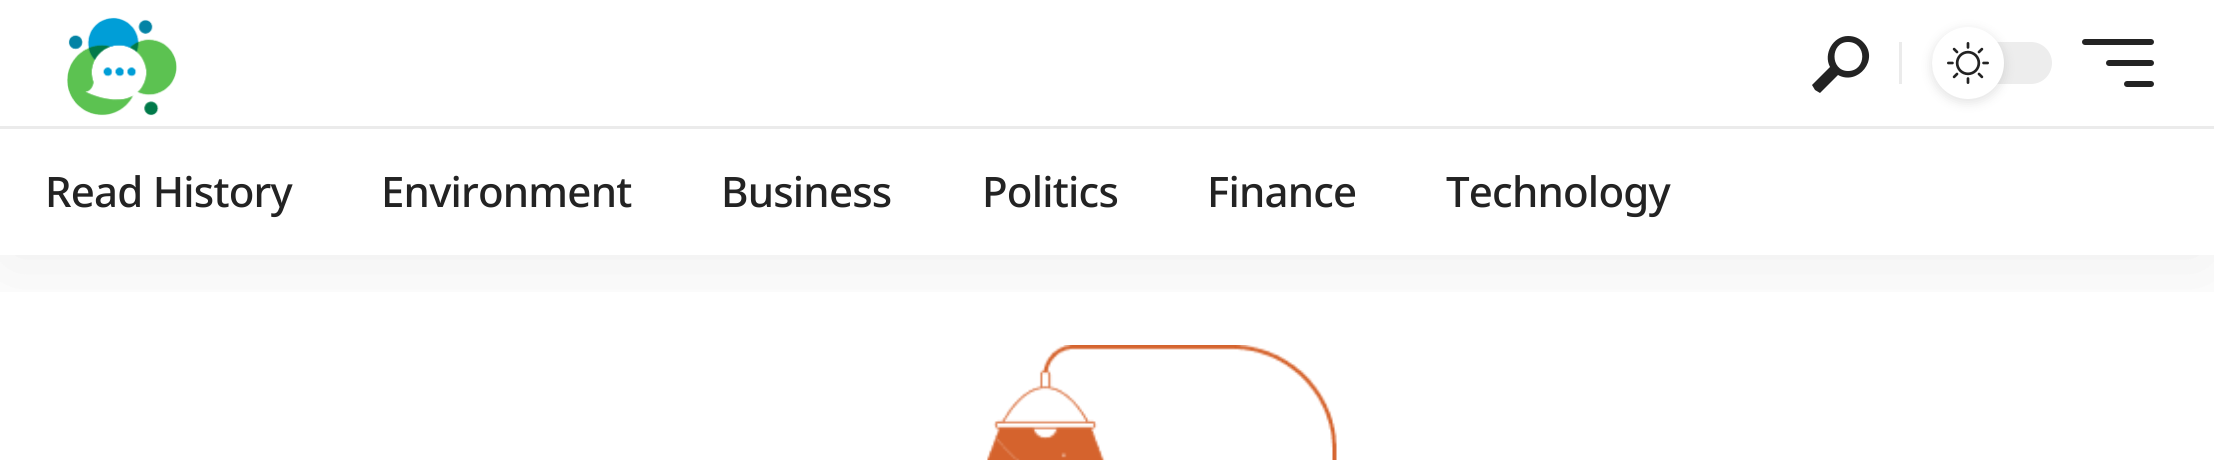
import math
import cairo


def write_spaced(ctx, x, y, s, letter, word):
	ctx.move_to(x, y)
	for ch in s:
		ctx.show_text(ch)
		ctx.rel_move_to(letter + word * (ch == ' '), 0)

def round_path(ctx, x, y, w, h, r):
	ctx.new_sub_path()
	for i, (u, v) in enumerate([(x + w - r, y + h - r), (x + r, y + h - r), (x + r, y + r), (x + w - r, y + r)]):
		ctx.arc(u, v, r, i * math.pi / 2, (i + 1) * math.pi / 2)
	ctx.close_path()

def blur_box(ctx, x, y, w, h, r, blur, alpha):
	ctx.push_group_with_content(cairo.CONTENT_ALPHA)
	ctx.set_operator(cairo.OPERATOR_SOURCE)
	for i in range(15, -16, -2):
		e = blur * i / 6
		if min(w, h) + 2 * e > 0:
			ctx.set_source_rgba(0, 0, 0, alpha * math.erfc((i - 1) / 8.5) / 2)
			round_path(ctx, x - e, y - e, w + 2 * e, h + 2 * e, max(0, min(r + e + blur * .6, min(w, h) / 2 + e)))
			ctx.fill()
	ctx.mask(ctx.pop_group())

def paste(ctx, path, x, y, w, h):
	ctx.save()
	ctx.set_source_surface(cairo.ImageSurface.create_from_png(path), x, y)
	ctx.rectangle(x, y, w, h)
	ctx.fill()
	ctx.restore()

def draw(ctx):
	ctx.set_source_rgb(1, 1, 1)
	ctx.paint()
	paste(ctx, 'media/3.png', 987, 345, 350, 115)
	ctx.save()
	ctx.rectangle(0, 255, 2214, 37)
	ctx.clip()
	ctx.set_source_rgb(0, 0, 0)
	blur_box(ctx, 0, 12, 2214, 255, 0, 45, 0.07)
	ctx.restore()
	paste(ctx, 'media/1.png', 67, 17, 110, 99)
	ctx.set_source_rgb(0.137, 0.137, 0.137)
	ctx.new_path()
	ctx.move_to(1848, 36)
	ctx.curve_to(1833, 36, 1823, 54, 1830, 67)
	ctx.line_to(1812, 85)
	ctx.line_to(1815, 90)
	ctx.line_to(1820, 93)
	ctx.line_to(1838, 75)
	ctx.curve_to(1858, 86, 1880, 59, 1863, 42)
	ctx.curve_to(1859, 38, 1854, 36, 1848, 36)
	ctx.close_path()
	ctx.move_to(1848, 71)
	ctx.curve_to(1830, 71, 1830, 42, 1848, 42)
	ctx.curve_to(1867, 42, 1867, 71, 1848, 71)
	ctx.close_path()
	ctx.fill()
	ctx.set_source_rgb(0.918, 0.918, 0.918)
	ctx.rectangle(1899, 42, 3, 42)
	ctx.fill()
	ctx.set_source_rgb(0.929, 0.929, 0.929)
	round_path(ctx, 1932, 42, 120, 42, 21)
	ctx.fill()
	ctx.set_source_rgb(0, 0, 0)
	blur_box(ctx, 1932, 30, 72, 72, 36, 6, 0.12)
	ctx.set_source_rgb(1, 1, 1)
	ctx.arc(1968, 63, 36, 0, 2 * math.pi)
	ctx.fill()
	paste(ctx, 'media/2.png', 1947, 42, 42, 42)
	ctx.set_source_rgb(0.137, 0.137, 0.137)
	round_path(ctx, 2082, 39, 72, 6, 3)
	ctx.fill()
	round_path(ctx, 2106, 60, 48, 6, 3)
	ctx.fill()
	round_path(ctx, 2124, 81, 30, 6, 3)
	ctx.fill()
	ctx.set_source_rgb(0.918, 0.918, 0.918)
	ctx.rectangle(0, 126, 2214, 3)
	ctx.fill()
	ctx.select_font_face('Noto Sans Medium')
	ctx.set_font_size(42)
	ctx.set_source_rgb(0.137, 0.137, 0.137)
	for x, y, s in [
		(45, 207, 'Read History'),
		(381, 207, 'Environment'),
		(721, 207, 'Business'),
		(982, 207, 'Politics'),
		(1207, 207, 'Finance'),
		(1446, 207, 'Technology'),
	]:
		write_spaced(ctx, x, y, s, -0.8, 0)


surface = cairo.ImageSurface(cairo.FORMAT_RGB24, 2214, 460)
ctx = cairo.Context(surface)
options = cairo.FontOptions()
options.set_hint_metrics(cairo.HINT_METRICS_OFF)
options.set_hint_style(cairo.HINT_STYLE_NONE)
ctx.set_font_options(options)
ctx.set_miter_limit(4)
draw(ctx)
surface.write_to_png('image.png')
